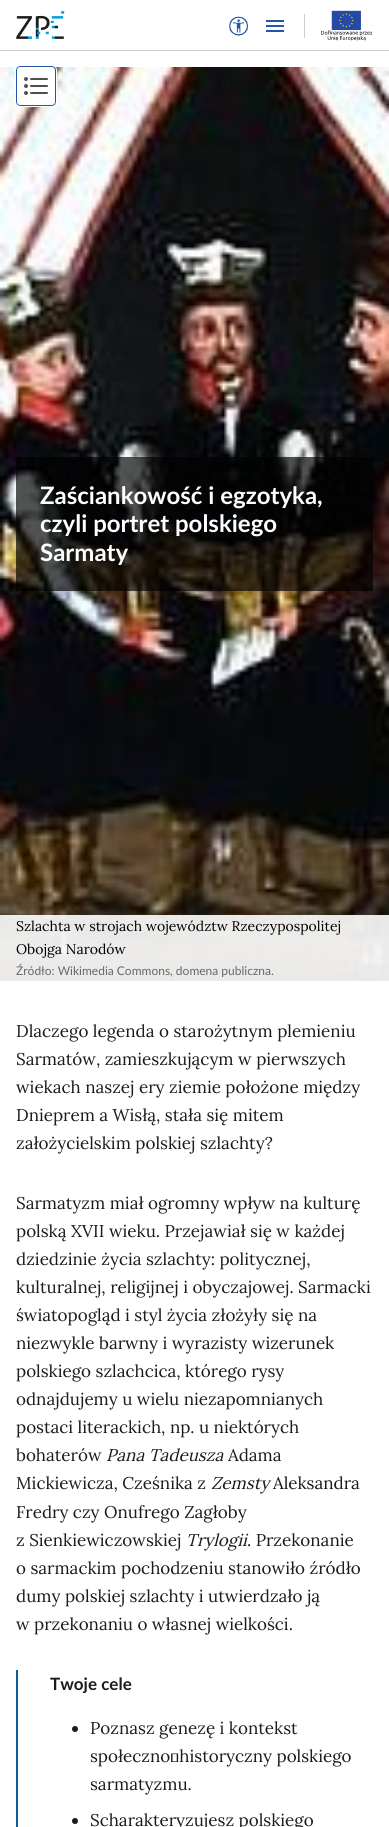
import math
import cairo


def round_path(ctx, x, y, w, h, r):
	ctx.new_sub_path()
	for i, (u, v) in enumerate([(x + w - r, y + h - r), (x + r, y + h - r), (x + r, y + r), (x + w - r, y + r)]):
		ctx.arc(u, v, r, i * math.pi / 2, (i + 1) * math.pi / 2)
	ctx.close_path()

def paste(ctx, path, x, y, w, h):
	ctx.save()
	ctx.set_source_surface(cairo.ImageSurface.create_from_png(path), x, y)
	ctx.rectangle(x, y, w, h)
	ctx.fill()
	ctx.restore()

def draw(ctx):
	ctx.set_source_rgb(1, 1, 1)
	ctx.paint()
	paste(ctx, 'media/1.png', 16, 11, 49, 28)
	paste(ctx, 'media/2.png', 229, 16, 20, 20)
	paste(ctx, 'media/3.png', 266, 20, 18, 12)
	ctx.set_source_rgb(0.804, 0.804, 0.804)
	ctx.rectangle(304, 14, 1, 24)
	ctx.fill()
	paste(ctx, 'media/4.png', 321, 10, 52, 31)
	ctx.rectangle(0, 50, 389, 1)
	ctx.fill()
	paste(ctx, 'media/6.png', 0, 67, 389, 914)
	ctx.set_source_rgb(1, 1, 1)
	round_path(ctx, 16.5, 66.5, 39, 39, 3.5)
	ctx.fill_preserve()
	ctx.set_source_rgb(0.129, 0.329, 0.667)
	ctx.set_line_width(1)
	ctx.stroke()
	round_path(ctx, 15.5, 65.5, 41, 41, 4.5)
	ctx.set_source_rgb(1, 1, 1)
	ctx.stroke()
	paste(ctx, 'media/5.png', 24, 77, 24, 18)
	ctx.set_source_rgba(0, 0, 0, 0.67)
	ctx.rectangle(16, 457, 357, 134)
	ctx.fill()
	ctx.select_font_face('Lato', cairo.FONT_SLANT_NORMAL, cairo.FONT_WEIGHT_BOLD)
	ctx.set_font_size(24)
	ctx.set_source_rgb(1, 1, 1)
	for x, y, s in [
		(40, 504, 'Zaściankowość i egzotyka,'),
		(40, 532, 'czyli portret polskiego'),
		(40, 561, 'Sarmaty'),
	]:
		ctx.move_to(x, y)
		ctx.show_text(s)
	ctx.set_source_rgba(1, 1, 1, 0.9)
	ctx.rectangle(0, 915, 389, 66)
	ctx.fill()
	ctx.select_font_face('Lora')
	ctx.set_font_size(14)
	ctx.set_source_rgb(0, 0, 0)
	ctx.move_to(16, 931)
	ctx.show_text('Szlachta w strojach województw Rzeczypospolitej')
	ctx.move_to(16, 954)
	ctx.show_text('Obojga Narodów')
	ctx.select_font_face('Lato')
	ctx.set_font_size(12)
	ctx.set_source_rgb(0.404, 0.404, 0.404)
	ctx.move_to(16, 975)
	ctx.show_text('Źródło: Wikimedia Commons, domena publiczna.')
	ctx.select_font_face('Lora')
	ctx.set_font_size(17)
	ctx.set_source_rgb(0.106, 0.106, 0.106)
	for x, y, s in [
		(16, 1037, 'Dlaczego legenda o starożytnym plemieniu'),
		(16, 1065, 'Sarmatów, zamieszkującym w pierwszych'),
		(16, 1093, 'wiekach naszej ery ziemie położone między'),
		(16, 1121, 'Dnieprem a Wisłą, stała się mitem'),
		(16, 1149, 'założycielskim polskiej szlachty?'),
		(16, 1209, 'Sarmatyzm miał ogromny wpływ na kulturę'),
		(16, 1237, 'polską XVII wieku. Przejawiał się w każdej'),
		(16, 1265, 'dziedzinie życia szlachty: politycznej,'),
		(16, 1293, 'kulturalnej, religijnej i obyczajowej. Sarmacki'),
		(16, 1321, 'światopogląd i styl życia złożyły się na'),
		(16, 1349, 'niezwykle barwny i wyrazisty wizerunek'),
		(16, 1377, 'polskiego szlachcica, którego rysy'),
		(16, 1405, 'odnajdujemy u wielu niezapomnianych'),
		(16, 1433, 'postaci literackich, np. u niektórych'),
		(16, 1461, 'bohaterów'),
	]:
		ctx.move_to(x, y)
		ctx.show_text(s)
	ctx.select_font_face('Lora', cairo.FONT_SLANT_ITALIC)
	ctx.move_to(106, 1461)
	ctx.show_text('Pana Tadeusza')
	ctx.select_font_face('Lora')
	ctx.move_to(228, 1461)
	ctx.show_text('Adama')
	ctx.move_to(16, 1489)
	ctx.show_text('Mickiewicza, Cześnika z')
	ctx.select_font_face('Lora', cairo.FONT_SLANT_ITALIC)
	ctx.move_to(211, 1489)
	ctx.show_text('Zemsty')
	ctx.select_font_face('Lora')
	for x, y, s in [
		(273, 1489, 'Aleksandra'),
		(16, 1518, 'Fredry czy Onufrego Zagłoby'),
		(16, 1546, 'z Sienkiewiczowskiej'),
	]:
		ctx.move_to(x, y)
		ctx.show_text(s)
	ctx.select_font_face('Lora', cairo.FONT_SLANT_ITALIC)
	ctx.move_to(186, 1546)
	ctx.show_text('Trylogii')
	ctx.select_font_face('Lora')
	for x, y, s in [
		(247, 1546, '. Przekonanie'),
		(16, 1574, 'o sarmackim pochodzeniu stanowiło źródło'),
		(16, 1602, 'dumy polskiej szlachty i utwierdzało ją'),
		(16, 1630, 'w przekonaniu o własnej wielkości.'),
	]:
		ctx.move_to(x, y)
		ctx.show_text(s)
	ctx.set_source_rgb(0.051, 0.369, 0.6)
	ctx.rectangle(16, 1670, 2, 157)
	ctx.fill()
	ctx.select_font_face('Lato', cairo.FONT_SLANT_NORMAL, cairo.FONT_WEIGHT_BOLD)
	ctx.set_source_rgb(0.106, 0.106, 0.106)
	ctx.move_to(50, 1690)
	ctx.show_text('Twoje cele')
	ctx.new_path()
	ctx.arc(75, 1729, 3, 0, 2 * math.pi)
	ctx.fill()
	ctx.select_font_face('Lora')
	for x, y, s in [
		(90, 1734, 'Poznasz genezę i kontekst'),
		(90, 1762, 'społeczno‑historyczny polskiego'),
		(90, 1790, 'sarmatyzmu.'),
	]:
		ctx.move_to(x, y)
		ctx.show_text(s)
	ctx.new_path()
	ctx.arc(75, 1821, 3, 0, 2 * math.pi)
	ctx.fill()
	ctx.move_to(90, 1826)
	ctx.show_text('Scharakteryzujesz polskiego')


surface = cairo.ImageSurface(cairo.FORMAT_RGB24, 389, 1827)
ctx = cairo.Context(surface)
options = cairo.FontOptions()
options.set_hint_metrics(cairo.HINT_METRICS_OFF)
options.set_hint_style(cairo.HINT_STYLE_NONE)
ctx.set_font_options(options)
ctx.set_miter_limit(4)
draw(ctx)
surface.write_to_png('image.png')
